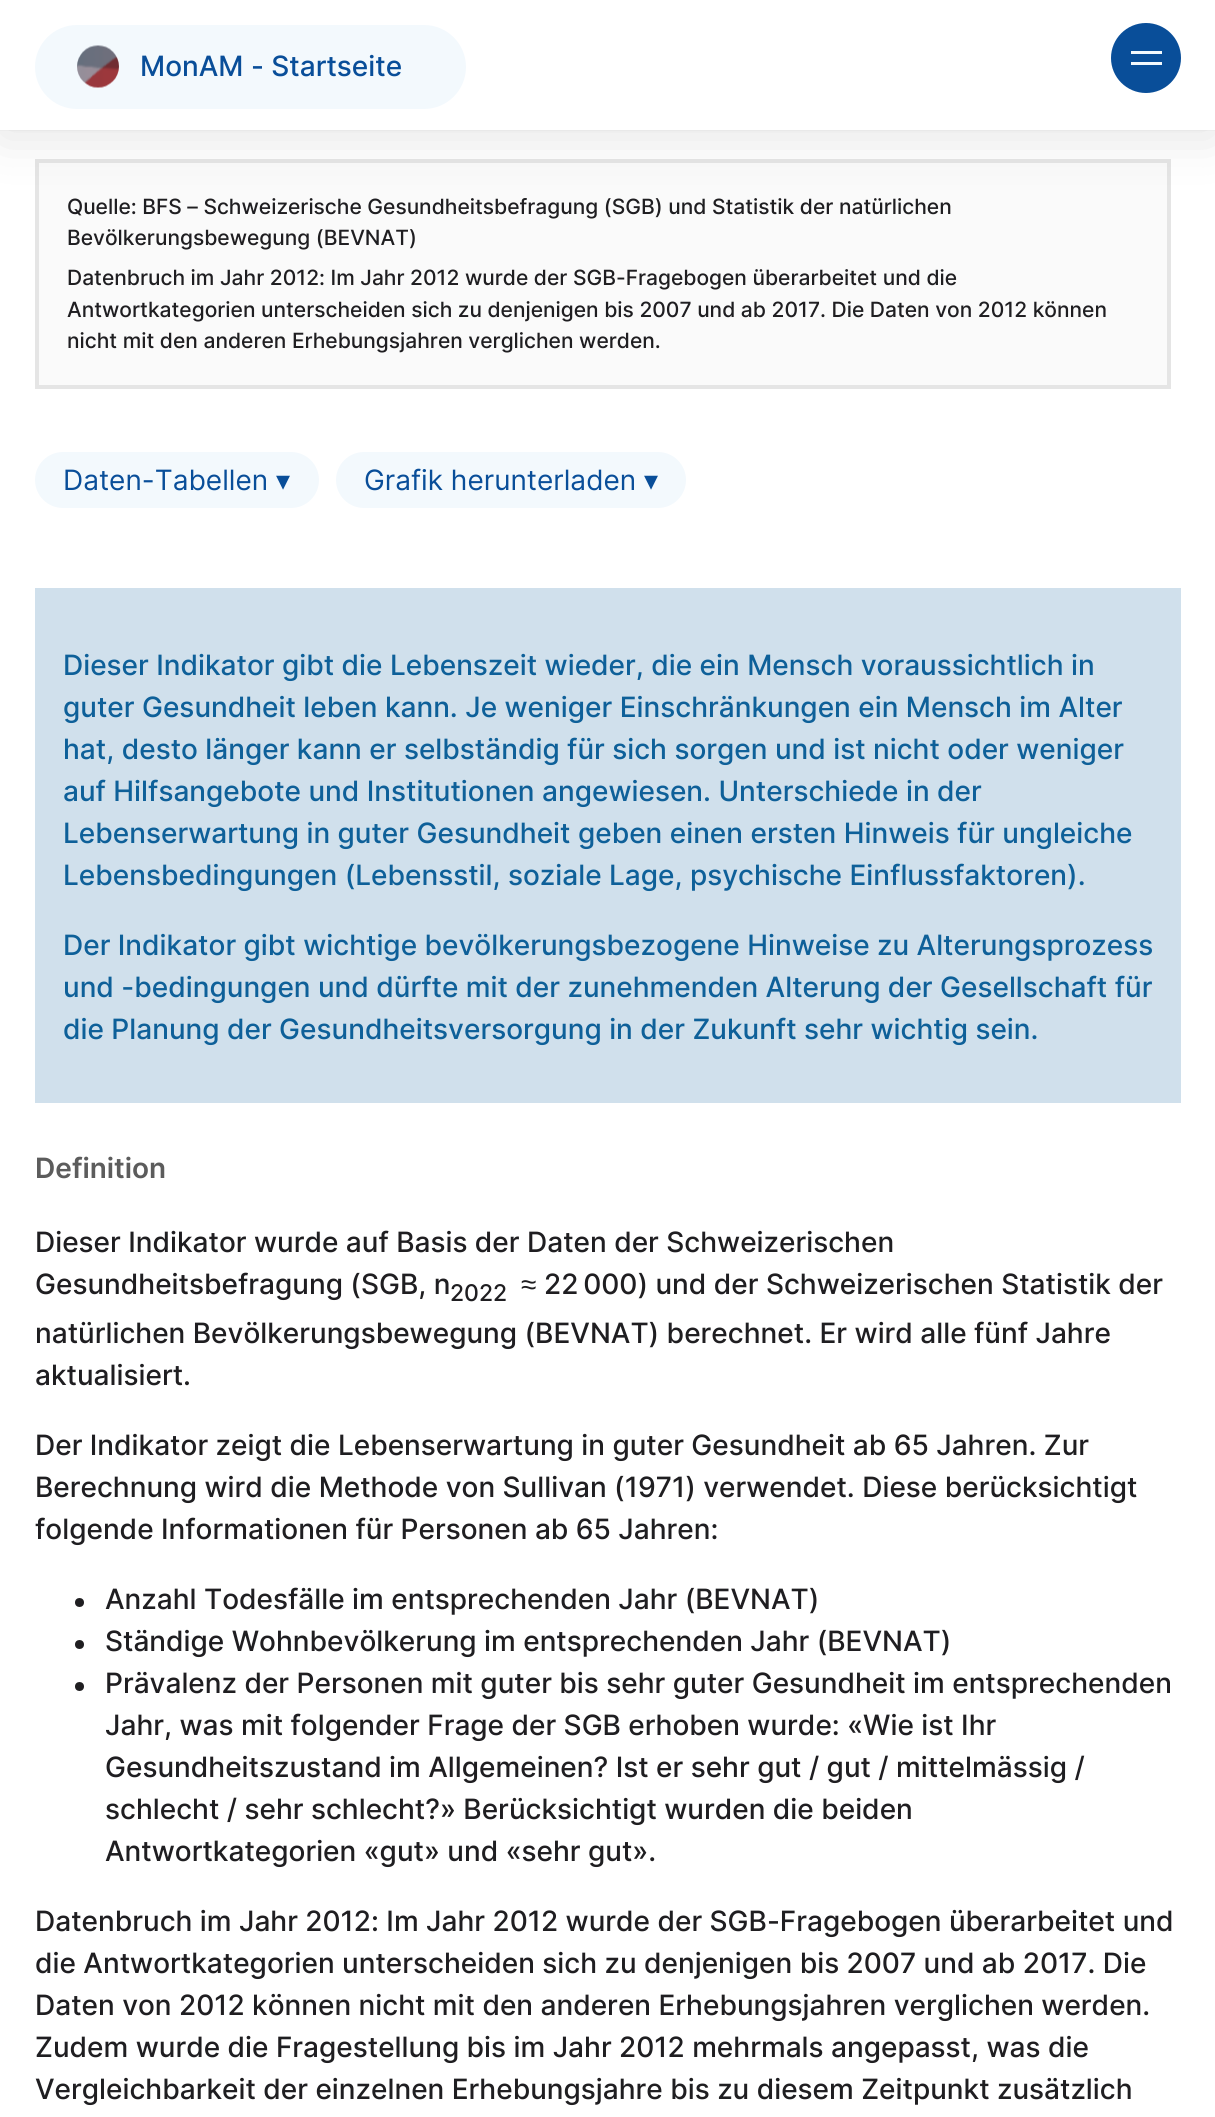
import math
import cairo


def round_path(ctx, x, y, w, h, r):
	ctx.new_sub_path()
	for i, (u, v) in enumerate([(x + w - r, y + h - r), (x + r, y + h - r), (x + r, y + r), (x + w - r, y + r)]):
		ctx.arc(u, v, r, i * math.pi / 2, (i + 1) * math.pi / 2)
	ctx.close_path()

def blur_box(ctx, x, y, w, h, r, blur, alpha):
	ctx.push_group_with_content(cairo.CONTENT_ALPHA)
	ctx.set_operator(cairo.OPERATOR_SOURCE)
	for i in range(15, -16, -2):
		e = blur * i / 6
		if min(w, h) + 2 * e > 0:
			ctx.set_source_rgba(0, 0, 0, alpha * math.erfc((i - 1) / 8.5) / 2)
			round_path(ctx, x - e, y - e, w + 2 * e, h + 2 * e, max(0, min(r + e + blur * .6, min(w, h) / 2 + e)))
			ctx.fill()
	ctx.mask(ctx.pop_group())

def paste(ctx, path, x, y, w, h):
	ctx.save()
	ctx.set_source_surface(cairo.ImageSurface.create_from_png(path), x, y)
	ctx.rectangle(x, y, w, h)
	ctx.fill()
	ctx.restore()

def draw(ctx):
	ctx.set_source_rgb(1, 1, 1)
	ctx.paint()
	ctx.set_source_rgb(0.98, 0.98, 0.98)
	ctx.rectangle(0, 130, 1215, 1)
	ctx.fill()
	ctx.rectangle(37, 161, 1132, 226)
	ctx.fill_preserve()
	ctx.set_source_rgb(0.898, 0.898, 0.898)
	ctx.set_line_width(4)
	ctx.stroke()
	ctx.set_source_rgb(0.125, 0.125, 0.125)
	blur_box(ctx, 0, 7, 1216, 130, 0, 26, 0.12)
	ctx.set_source_rgb(1, 1, 1)
	ctx.rectangle(0, 0, 1215, 130)
	ctx.fill()
	ctx.set_source_rgb(0.953, 0.973, 0.992)
	round_path(ctx, 35, 25, 431, 84, 42)
	ctx.fill()
	paste(ctx, 'media/1.png', 77, 45, 42, 43)
	ctx.select_font_face('Inter Medium')
	ctx.set_font_size(28)
	ctx.set_source_rgb(0.039, 0.306, 0.6)
	ctx.move_to(140, 76)
	ctx.show_text('MonAM - Startseite')
	ctx.new_path()
	ctx.arc(1146, 58, 35, 0, 2 * math.pi)
	ctx.fill()
	ctx.set_source_rgb(0.953, 0.973, 0.992)
	ctx.rectangle(1131, 51, 31, 3)
	ctx.fill()
	ctx.rectangle(1131, 62, 31, 3)
	ctx.fill()
	ctx.set_font_size(21)
	ctx.set_source_rgb(0.122, 0.118, 0.129)
	for x, y, s in [
		(67, 214, 'Quelle: BFS – Schweizerische Gesundheitsbefragung (SGB) und Statistik der natürlichen'),
		(67, 245, 'Bevölkerungsbewegung (BEVNAT)'),
		(67, 285, 'Datenbruch im Jahr 2012: Im Jahr 2012 wurde der SGB-Fragebogen überarbeitet und die'),
		(67, 317, 'Antwortkategorien unterscheiden sich zu denjenigen bis 2007 und ab 2017. Die Daten von 2012 können'),
		(67, 348, 'nicht mit den anderen Erhebungsjahren verglichen werden.'),
	]:
		ctx.move_to(x, y)
		ctx.show_text(s)
	ctx.set_source_rgb(0.953, 0.973, 0.992)
	round_path(ctx, 35, 452, 284, 56, 28)
	ctx.fill()
	ctx.select_font_face('Inter')
	ctx.set_font_size(28)
	ctx.set_source_rgb(0.039, 0.306, 0.6)
	ctx.move_to(63, 490)
	ctx.show_text('Daten-Tabellen')
	ctx.select_font_face('DejaVu Sans')
	ctx.move_to(276, 490)
	ctx.show_text('▾')
	ctx.set_source_rgb(0.953, 0.973, 0.992)
	round_path(ctx, 336, 452, 350, 56, 28)
	ctx.fill()
	ctx.select_font_face('Inter')
	ctx.set_source_rgb(0.039, 0.306, 0.6)
	ctx.move_to(364, 490)
	ctx.show_text('Grafik herunterladen')
	ctx.select_font_face('DejaVu Sans')
	ctx.move_to(644, 490)
	ctx.show_text('▾')
	ctx.set_source_rgb(0.816, 0.878, 0.922)
	ctx.rectangle(35, 588, 1146, 515)
	ctx.fill()
	ctx.select_font_face('Inter Medium')
	ctx.set_source_rgb(0.055, 0.376, 0.6)
	for x, y, s in [
		(63, 675, 'Dieser Indikator gibt die Lebenszeit wieder, die ein Mensch voraussichtlich in'),
		(63, 717, 'guter Gesundheit leben kann. Je weniger Einschränkungen ein Mensch im Alter'),
		(63, 759, 'hat, desto länger kann er selbständig für sich sorgen und ist nicht oder weniger'),
		(63, 801, 'auf Hilfsangebote und Institutionen angewiesen. Unterschiede in der'),
		(63, 843, 'Lebenserwartung in guter Gesundheit geben einen ersten Hinweis für ungleiche'),
		(63, 885, 'Lebensbedingungen (Lebensstil, soziale Lage, psychische Einflussfaktoren).'),
		(63, 955, 'Der Indikator gibt wichtige bevölkerungsbezogene Hinweise zu Alterungsprozess'),
		(63, 997, 'und -bedingungen und dürfte mit der zunehmenden Alterung der Gesellschaft für'),
		(63, 1039, 'die Planung der Gesundheitsversorgung in der Zukunft sehr wichtig sein.'),
	]:
		ctx.move_to(x, y)
		ctx.show_text(s)
	ctx.select_font_face('Inter SemiBold')
	ctx.set_source_rgb(0.361, 0.361, 0.361)
	ctx.move_to(35, 1178)
	ctx.show_text('Definition')
	ctx.select_font_face('Inter Medium')
	ctx.set_source_rgb(0.122, 0.118, 0.129)
	ctx.move_to(35, 1252)
	ctx.show_text('Dieser Indikator wurde auf Basis der Daten der Schweizerischen')
	ctx.move_to(35, 1294)
	ctx.show_text('Gesundheitsbefragung (SGB, n')
	ctx.set_font_size(23)
	ctx.move_to(450, 1301)
	ctx.show_text('2022')
	ctx.select_font_face('Liberation Sans')
	ctx.set_font_size(28)
	ctx.move_to(521, 1294)
	ctx.show_text('≈')
	ctx.select_font_face('Inter Medium')
	for x, y, s in [
		(544, 1294, '22 000) und der Schweizerischen Statistik der'),
		(35, 1343, 'natürlichen Bevölkerungsbewegung (BEVNAT) berechnet. Er wird alle fünf Jahre'),
		(35, 1385, 'aktualisiert.'),
		(35, 1455, 'Der Indikator zeigt die Lebenserwartung in guter Gesundheit ab 65 Jahren. Zur'),
		(35, 1497, 'Berechnung wird die Methode von Sullivan (1971) verwendet. Diese berücksichtigt'),
		(35, 1539, 'folgende Informationen für Personen ab 65 Jahren:'),
	]:
		ctx.move_to(x, y)
		ctx.show_text(s)
	ctx.new_path()
	ctx.arc(79.5, 1602.5, 4.5, 0, 2 * math.pi)
	ctx.fill()
	ctx.move_to(105, 1609)
	ctx.show_text('Anzahl Todesfälle im entsprechenden Jahr (BEVNAT)')
	ctx.new_path()
	ctx.arc(79.5, 1644.5, 4.5, 0, 2 * math.pi)
	ctx.fill()
	ctx.move_to(105, 1651)
	ctx.show_text('Ständige Wohnbevölkerung im entsprechenden Jahr (BEVNAT)')
	ctx.new_path()
	ctx.arc(79.5, 1686.5, 4.5, 0, 2 * math.pi)
	ctx.fill()
	for x, y, s in [
		(105, 1693, 'Prävalenz der Personen mit guter bis sehr guter Gesundheit im entsprechenden'),
		(105, 1735, 'Jahr, was mit folgender Frage der SGB erhoben wurde: «Wie ist Ihr'),
		(105, 1777, 'Gesundheitszustand im Allgemeinen? Ist er sehr gut / gut / mittelmässig /'),
		(105, 1819, 'schlecht / sehr schlecht?» Berücksichtigt wurden die beiden'),
		(105, 1861, 'Antwortkategorien «gut» und «sehr gut».'),
		(35, 1931, 'Datenbruch im Jahr 2012: Im Jahr 2012 wurde der SGB-Fragebogen überarbeitet und'),
		(35, 1973, 'die Antwortkategorien unterscheiden sich zu denjenigen bis 2007 und ab 2017. Die'),
		(35, 2015, 'Daten von 2012 können nicht mit den anderen Erhebungsjahren verglichen werden.'),
		(35, 2057, 'Zudem wurde die Fragestellung bis im Jahr 2012 mehrmals angepasst, was die'),
		(35, 2099, 'Vergleichbarkeit der einzelnen Erhebungsjahre bis zu diesem Zeitpunkt zusätzlich'),
	]:
		ctx.move_to(x, y)
		ctx.show_text(s)


surface = cairo.ImageSurface(cairo.FORMAT_RGB24, 1215, 2117)
ctx = cairo.Context(surface)
options = cairo.FontOptions()
options.set_hint_metrics(cairo.HINT_METRICS_OFF)
options.set_hint_style(cairo.HINT_STYLE_NONE)
ctx.set_font_options(options)
ctx.set_miter_limit(4)
draw(ctx)
surface.write_to_png('image.png')
